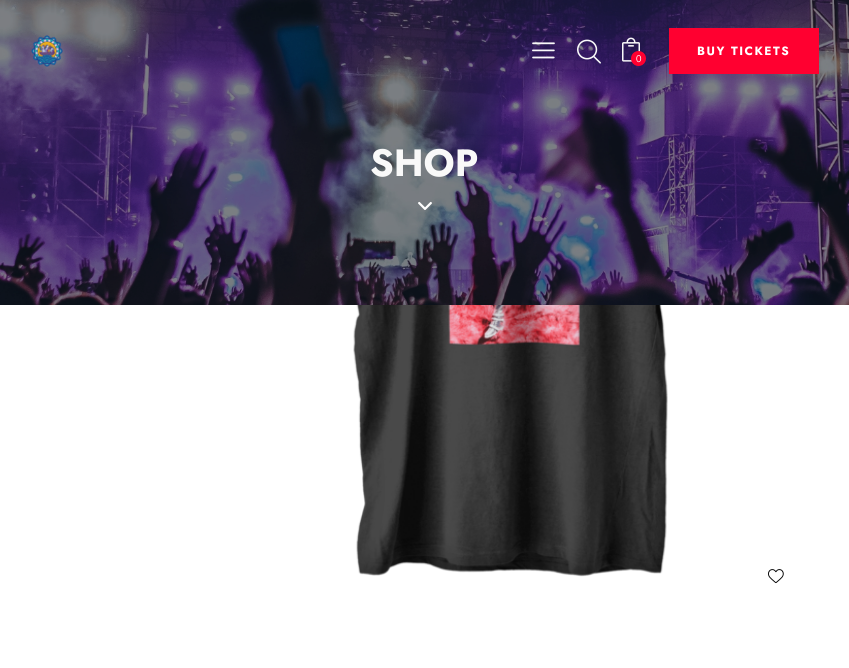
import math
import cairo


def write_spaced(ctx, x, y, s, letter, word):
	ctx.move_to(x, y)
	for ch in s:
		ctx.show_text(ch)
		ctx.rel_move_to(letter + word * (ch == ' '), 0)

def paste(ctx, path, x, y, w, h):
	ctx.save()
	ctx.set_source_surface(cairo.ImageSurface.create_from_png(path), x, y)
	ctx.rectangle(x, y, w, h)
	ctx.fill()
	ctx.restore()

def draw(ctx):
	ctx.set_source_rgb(1, 1, 1)
	ctx.paint()
	paste(ctx, 'media/1.png', 0, 0, 849, 305)
	paste(ctx, 'media/2.png', 31, 35, 32, 32)
	paste(ctx, 'media/3.png', 532, 42, 23, 17)
	paste(ctx, 'media/4.png', 577, 39, 24, 25)
	ctx.set_source_rgb(1, 0, 0.188)
	ctx.rectangle(669, 28, 150, 46)
	ctx.fill()
	ctx.select_font_face('Jost', cairo.FONT_SLANT_NORMAL, cairo.FONT_WEIGHT_BOLD)
	ctx.set_font_size(12)
	ctx.set_source_rgb(1, 1, 1)
	write_spaced(ctx, 697, 55, 'BUY TICKETS', 1.5, 0)
	paste(ctx, 'media/5.png', 622, 37, 18, 25)
	ctx.set_source_rgb(1, 0, 0.188)
	ctx.arc(638.5, 58.5, 7.5, 0, 2 * math.pi)
	ctx.fill()
	ctx.select_font_face('Didact Gothic')
	ctx.set_font_size(10)
	ctx.set_source_rgb(1, 1, 1)
	ctx.move_to(636, 62)
	ctx.show_text('0')
	ctx.select_font_face('Jost', cairo.FONT_SLANT_NORMAL, cairo.FONT_WEIGHT_BOLD)
	ctx.set_font_size(38)
	ctx.set_source_rgb(0.976, 0.976, 0.976)
	ctx.move_to(370, 176)
	ctx.show_text('SHOP')
	paste(ctx, 'media/6.png', 418, 201, 14, 9)
	paste(ctx, 'media/7.png', 353, 305, 315, 272)
	paste(ctx, 'media/8.png', 768, 569, 16, 15)


surface = cairo.ImageSurface(cairo.FORMAT_RGB24, 849, 668)
ctx = cairo.Context(surface)
options = cairo.FontOptions()
options.set_hint_metrics(cairo.HINT_METRICS_OFF)
options.set_hint_style(cairo.HINT_STYLE_NONE)
ctx.set_font_options(options)
ctx.set_miter_limit(4)
draw(ctx)
surface.write_to_png('image.png')
